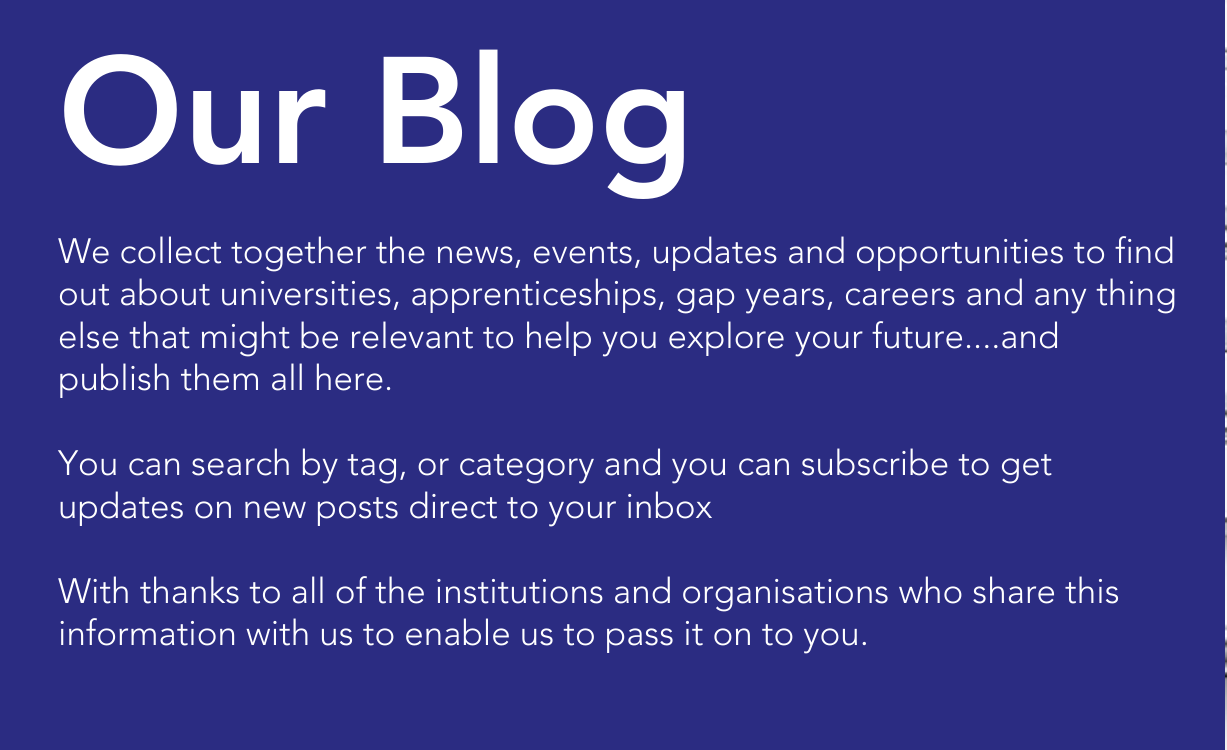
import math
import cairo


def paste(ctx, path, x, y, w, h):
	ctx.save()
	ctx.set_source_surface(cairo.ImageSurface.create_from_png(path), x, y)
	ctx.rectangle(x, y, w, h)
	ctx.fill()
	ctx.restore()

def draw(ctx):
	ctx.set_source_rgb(0.169, 0.173, 0.51)
	ctx.paint()
	ctx.select_font_face('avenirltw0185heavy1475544 Black')
	ctx.set_font_size(150)
	ctx.set_source_rgb(1, 1, 1)
	ctx.move_to(58, 163)
	ctx.show_text('Our Blog')
	ctx.select_font_face('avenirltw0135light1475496 Light')
	ctx.set_font_size(35)
	for x, y, s in [
		(58, 263, 'We collect together the news, events, updates and opportunities to find'),
		(58, 305, 'out about universities, apprenticeships, gap years, careers and any thing'),
		(58, 348, 'else that might be relevant to help you explore your future....and'),
		(58, 390, 'publish them all here.'),
		(58, 475, 'You can search by tag, or category and you can subscribe to get'),
		(58, 518, 'updates on new posts direct to your inbox'),
		(58, 603, 'With thanks to all of the institutions and organisations who share this'),
		(58, 645, 'information with us to enable us to pass it on to you.'),
	]:
		ctx.move_to(x, y)
		ctx.show_text(s)
	paste(ctx, 'media/1.png', 1225, 0, 2, 750)


surface = cairo.ImageSurface(cairo.FORMAT_RGB24, 1227, 750)
ctx = cairo.Context(surface)
options = cairo.FontOptions()
options.set_hint_metrics(cairo.HINT_METRICS_OFF)
options.set_hint_style(cairo.HINT_STYLE_NONE)
ctx.set_font_options(options)
ctx.set_miter_limit(4)
draw(ctx)
surface.write_to_png('image.png')
